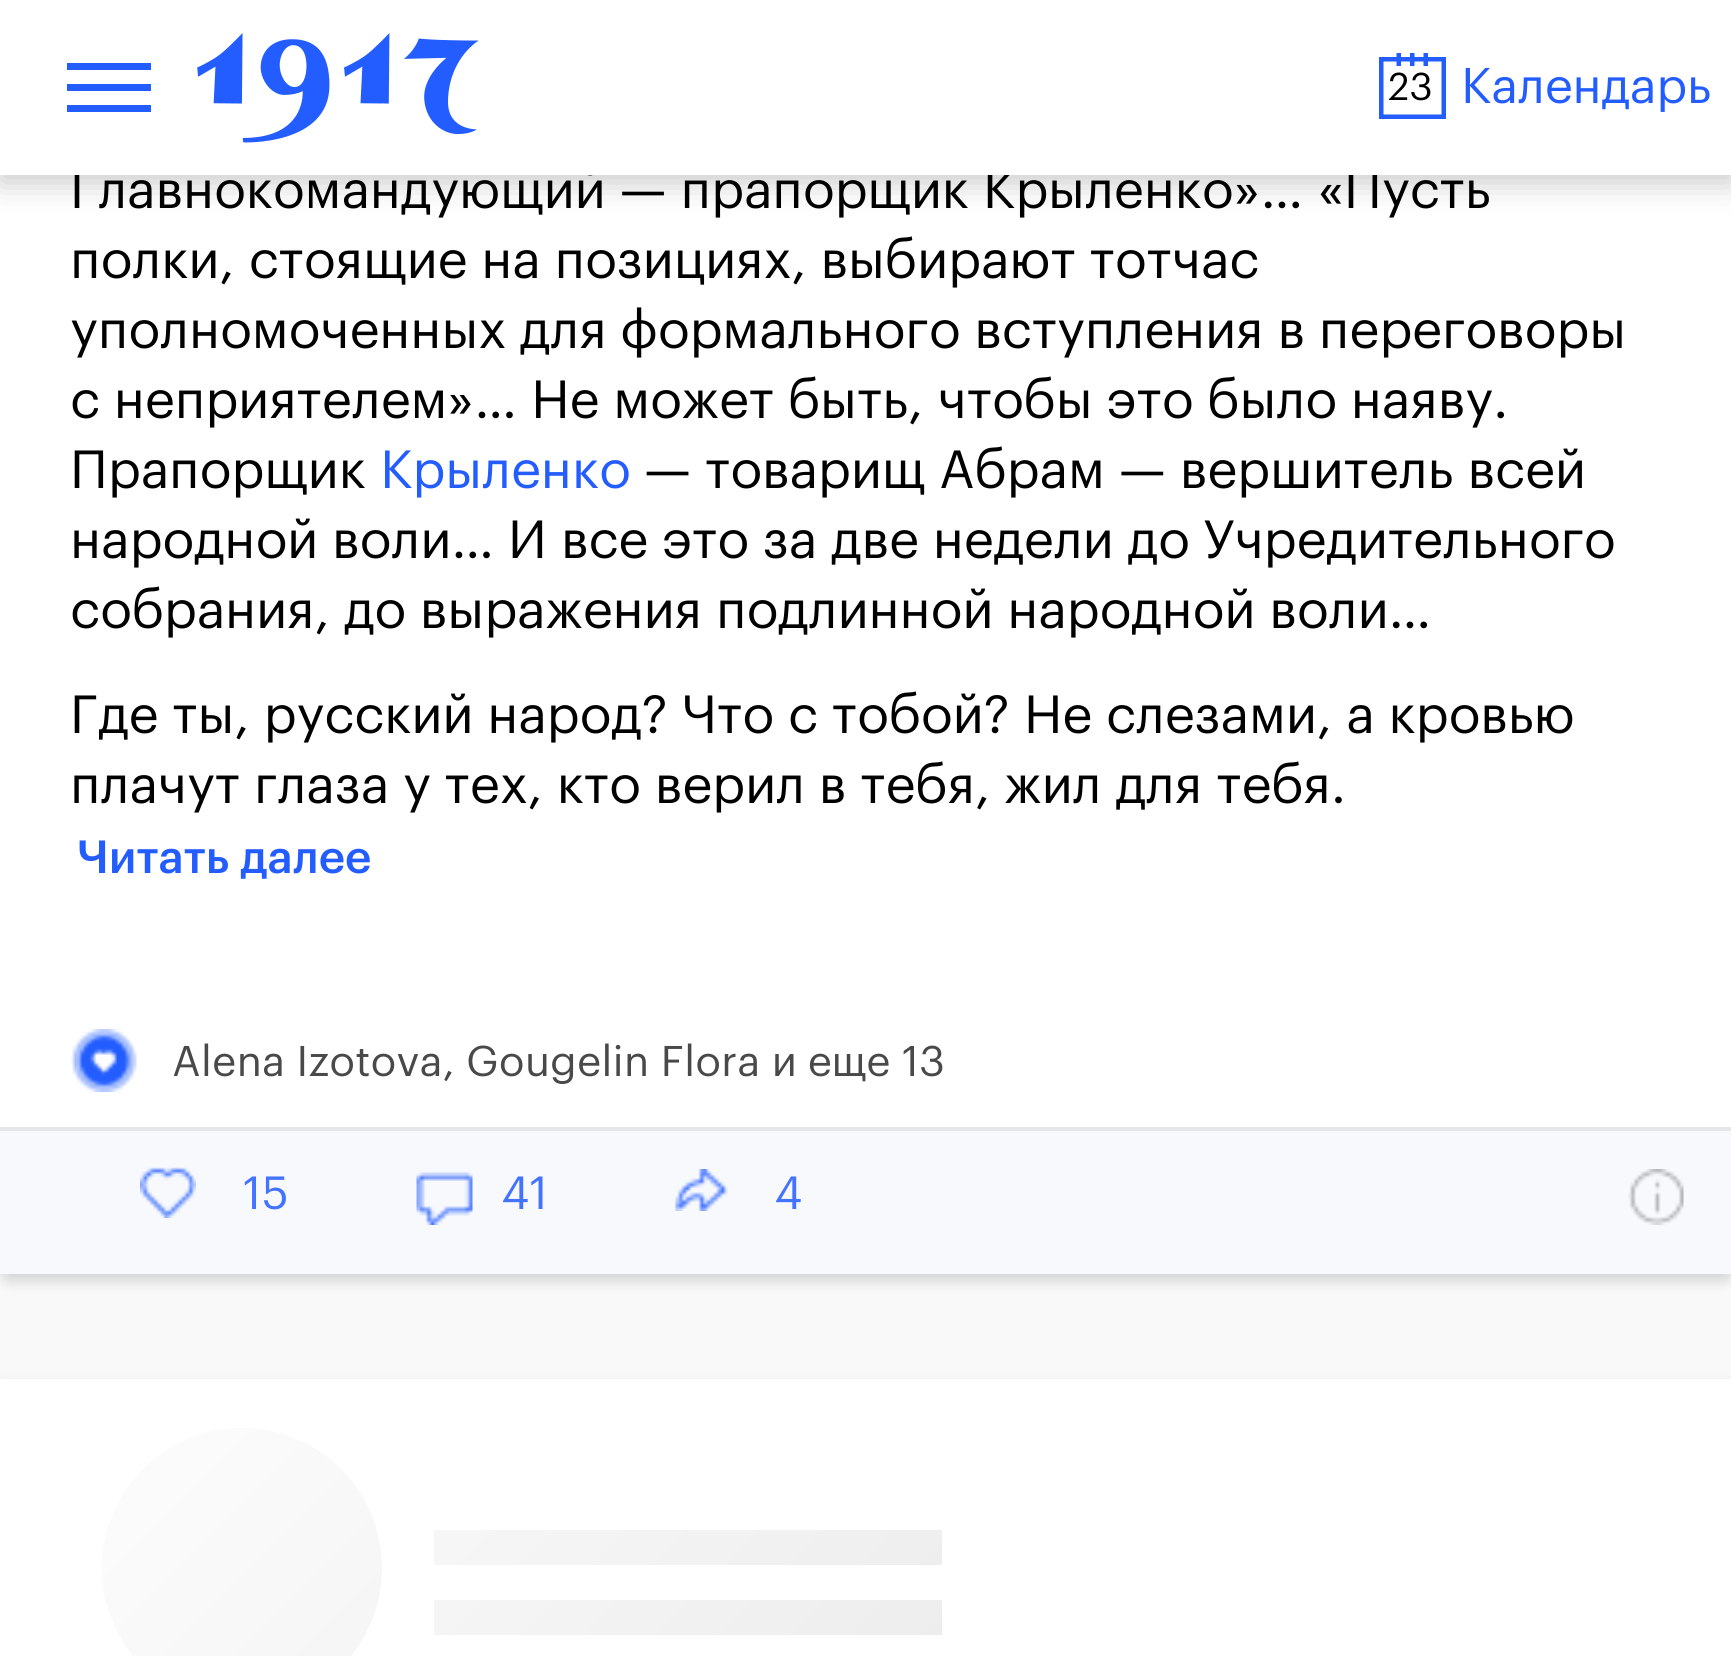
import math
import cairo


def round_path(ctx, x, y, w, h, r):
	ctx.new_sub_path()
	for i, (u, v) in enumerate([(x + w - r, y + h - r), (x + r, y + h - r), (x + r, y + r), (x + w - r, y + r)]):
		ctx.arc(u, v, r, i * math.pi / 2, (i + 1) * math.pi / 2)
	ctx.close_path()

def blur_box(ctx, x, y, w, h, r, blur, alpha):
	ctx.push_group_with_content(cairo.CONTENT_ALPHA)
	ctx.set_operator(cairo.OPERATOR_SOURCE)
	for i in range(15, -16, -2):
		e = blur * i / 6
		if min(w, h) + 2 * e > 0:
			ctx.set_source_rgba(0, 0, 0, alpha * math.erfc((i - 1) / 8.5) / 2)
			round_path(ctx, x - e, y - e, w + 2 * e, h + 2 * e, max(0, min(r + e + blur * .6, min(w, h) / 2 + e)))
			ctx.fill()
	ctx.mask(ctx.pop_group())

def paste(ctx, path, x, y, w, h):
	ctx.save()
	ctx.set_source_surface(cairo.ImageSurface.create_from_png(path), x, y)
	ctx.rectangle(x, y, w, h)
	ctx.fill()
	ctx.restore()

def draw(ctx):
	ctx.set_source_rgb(0.973, 0.973, 0.973)
	ctx.paint()
	ctx.set_source_rgb(0, 0, 0)
	blur_box(ctx, 0, -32, 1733, 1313, 11, 7, 0.16)
	ctx.set_source_rgb(1, 1, 1)
	ctx.rectangle(0, 175, 1731, 952)
	ctx.fill()
	ctx.set_source_rgb(0, 0, 0)
	blur_box(ctx, 0, 7, 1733, 175, 0, 16, 0.22)
	ctx.select_font_face('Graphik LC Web')
	ctx.set_font_size(52.5)
	ctx.set_source_rgb(0, 0, 0)
	ctx.move_to(70, 208)
	ctx.show_text('Главнокомандующий — прапорщик Крыленко»… «Пусть')
	ctx.set_source_rgb(1, 1, 1)
	ctx.rectangle(0, 0, 1731, 175)
	ctx.fill()
	ctx.set_source_rgb(0.141, 0.365, 1)
	ctx.rectangle(67, 105, 84, 7)
	ctx.rectangle(67, 84, 84, 7)
	ctx.rectangle(67, 63, 84, 7)
	ctx.fill()
	paste(ctx, 'media/1.png', 197, 33, 282, 110)
	ctx.save()
	ctx.rectangle(1379, 53, 67, 66)
	ctx.clip()
	ctx.set_fill_rule(cairo.FILL_RULE_EVEN_ODD)
	ctx.new_path()
	ctx.move_to(1396.5, 66)
	ctx.line_to(1396.5, 52.5)
	ctx.line_to(1401, 52.5)
	ctx.line_to(1401, 66)
	ctx.close_path()
	ctx.move_to(1410, 66)
	ctx.line_to(1410, 52.5)
	ctx.line_to(1414.5, 52.5)
	ctx.line_to(1414.5, 66)
	ctx.close_path()
	ctx.move_to(1423.5, 66)
	ctx.line_to(1423.5, 52.5)
	ctx.line_to(1428, 52.5)
	ctx.line_to(1428, 66)
	ctx.close_path()
	ctx.fill()
	ctx.restore()
	ctx.rectangle(1381.25, 59.25, 62.5, 57.5)
	ctx.set_line_width(4.5)
	ctx.stroke()
	ctx.set_font_size(38)
	ctx.set_source_rgb(0, 0, 0)
	ctx.move_to(1388, 100)
	ctx.show_text('23')
	ctx.set_font_size(49)
	ctx.set_source_rgb(0.141, 0.365, 1)
	ctx.move_to(1461, 103)
	ctx.show_text('Календарь')
	ctx.set_font_size(52.5)
	ctx.set_source_rgb(0, 0, 0)
	for x, y, s in [
		(70, 278, 'полки, стоящие на позициях, выбирают тотчас'),
		(70, 348, 'уполномоченных для формального вступления в переговоры'),
		(70, 418, 'с неприятелем»… Не может быть, чтобы это было наяву.'),
		(70, 488, 'Прапорщик'),
	]:
		ctx.move_to(x, y)
		ctx.show_text(s)
	ctx.set_source_rgb(0.141, 0.365, 1)
	ctx.move_to(380, 488)
	ctx.show_text('Крыленко')
	ctx.set_source_rgb(0, 0, 0)
	for x, y, s in [
		(644, 488, '— товарищ Абрам — вершитель всей'),
		(70, 558, 'народной воли… И все это за две недели до Учредительного'),
		(70, 628, 'собрания, до выражения подлинной народной воли…'),
		(70, 733, 'Где ты, русский народ? Что с тобой? Не слезами, а кровью'),
		(70, 803, 'плачут глаза у тех, кто верил в тебя, жил для тебя.'),
	]:
		ctx.move_to(x, y)
		ctx.show_text(s)
	ctx.select_font_face('Graphik LC Web Medium')
	ctx.set_font_size(45.5)
	ctx.set_source_rgb(0.141, 0.365, 1)
	ctx.move_to(77, 873)
	ctx.show_text('Читать далее')
	paste(ctx, 'media/2.png', 70, 1029, 67, 63)
	ctx.select_font_face('Graphik LC Web')
	ctx.set_font_size(42)
	ctx.set_source_rgb(0.286, 0.286, 0.286)
	ctx.move_to(172, 1076)
	ctx.show_text('Alena Izotova, Gougelin Flora и еще')
	ctx.move_to(902, 1076)
	ctx.show_text('13')
	ctx.set_source_rgb(0.965, 0.973, 0.992)
	ctx.rectangle(0, 1131, 1731, 143)
	ctx.fill()
	ctx.set_source_rgb(0.902, 0.902, 0.902)
	ctx.rectangle(0, 1127, 1731, 4)
	ctx.fill()
	paste(ctx, 'media/3.png', 140, 1167, 56, 51)
	ctx.set_font_size(45.5)
	ctx.set_source_rgb(0.267, 0.455, 1)
	ctx.move_to(243, 1209)
	ctx.show_text('15')
	paste(ctx, 'media/4.png', 416, 1172, 57, 53)
	ctx.move_to(501, 1209)
	ctx.show_text('41')
	paste(ctx, 'media/5.png', 675, 1169, 53, 42)
	ctx.move_to(774, 1209)
	ctx.show_text('4')
	paste(ctx, 'media/6.png', 1628, 1169, 56, 56)
	ctx.set_source_rgb(0, 0, 0)
	blur_box(ctx, 0, 1386, 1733, 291, 0, 7, 0.16)
	ctx.set_source_rgb(1, 1, 1)
	ctx.rectangle(0, 1379, 1731, 277)
	ctx.fill()
	ctx.set_source_rgb(0.847, 0.847, 0.847)
	ctx.arc(242, 1568, 140, 0, 2 * math.pi)
	ctx.fill()
	ctx.rectangle(434, 1530, 508, 35)
	ctx.fill()
	ctx.rectangle(434, 1600, 508, 35)
	ctx.fill()
	gradient = cairo.LinearGradient(-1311, 68, 1311, 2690)
	gradient.add_color_stop_rgba(0, 1, 1, 1, 0)
	gradient.add_color_stop_rgba(0.5, 1, 1, 1, 1)
	gradient.add_color_stop_rgba(1, 1, 1, 1, 0)
	ctx.set_source(gradient)
	ctx.rectangle(102, 1428, 840, 228)
	ctx.fill()


surface = cairo.ImageSurface(cairo.FORMAT_RGB24, 1731, 1656)
ctx = cairo.Context(surface)
options = cairo.FontOptions()
options.set_hint_metrics(cairo.HINT_METRICS_OFF)
options.set_hint_style(cairo.HINT_STYLE_NONE)
ctx.set_font_options(options)
ctx.set_miter_limit(4)
draw(ctx)
surface.write_to_png('image.png')
